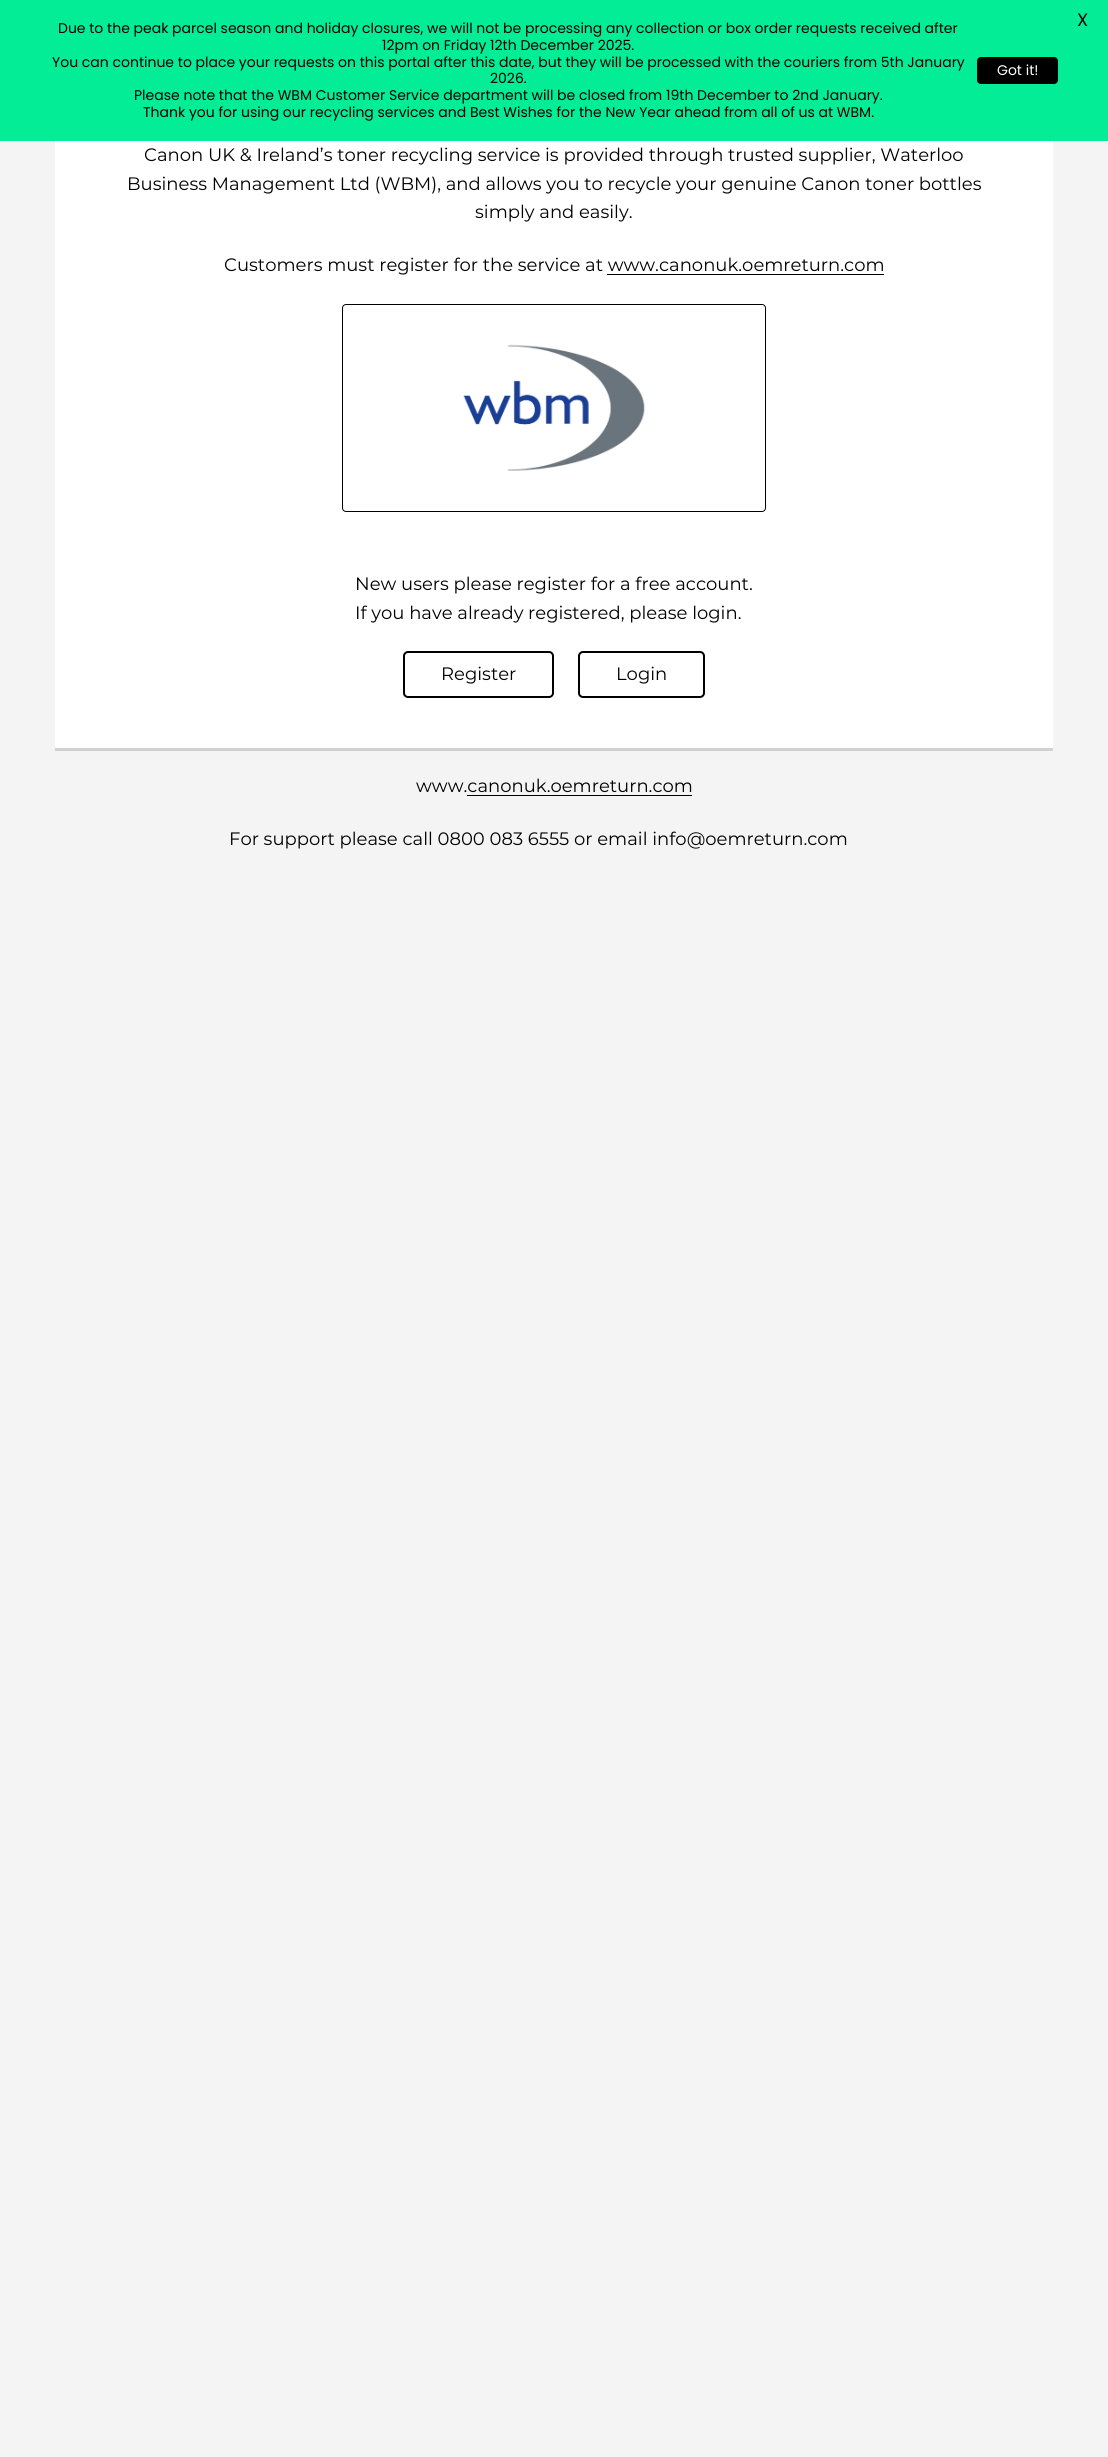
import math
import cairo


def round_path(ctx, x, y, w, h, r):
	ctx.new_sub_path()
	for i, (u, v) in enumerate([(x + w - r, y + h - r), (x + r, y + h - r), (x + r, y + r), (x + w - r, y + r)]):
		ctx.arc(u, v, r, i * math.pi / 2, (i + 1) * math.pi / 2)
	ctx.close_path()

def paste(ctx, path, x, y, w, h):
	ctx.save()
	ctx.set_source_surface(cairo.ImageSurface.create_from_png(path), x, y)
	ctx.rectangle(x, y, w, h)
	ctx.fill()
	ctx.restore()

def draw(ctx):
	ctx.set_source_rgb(0.957, 0.957, 0.957)
	ctx.paint()
	ctx.set_source_rgb(0.012, 0.929, 0.588)
	ctx.rectangle(0, 0, 1108, 141)
	ctx.fill()
	ctx.select_font_face('Poppins')
	ctx.set_font_size(18)
	ctx.set_source_rgb(0, 0, 0)
	ctx.move_to(1077, 26)
	ctx.show_text('X')
	ctx.set_font_size(14)
	for x, y, s in [
		(58, 33, 'Due to the peak parcel season and holiday closures, we will not be processing any collection or box order requests received after'),
		(382, 50, '12pm on Friday 12th December 2025.'),
		(52, 67, 'You can continue to place your requests on this portal after this date, but they will be processed with the couriers from 5th January'),
		(490, 83, '2026.'),
		(134, 100, 'Please note that the WBM Customer Service department will be closed from 19th December to 2nd January.'),
		(143, 117, 'Thank you for using our recycling services and Best Wishes for the New Year ahead from all of us at WBM.'),
	]:
		ctx.move_to(x, y)
		ctx.show_text(s)
	round_path(ctx, 977, 57, 81, 27, 4)
	ctx.fill()
	ctx.set_source_rgb(1, 1, 1)
	ctx.move_to(997, 75)
	ctx.show_text('Got it!')
	ctx.set_source_rgb(0.82, 0.82, 0.82)
	ctx.rectangle(55, 748, 998, 3)
	ctx.fill()
	ctx.set_source_rgb(1, 1, 1)
	ctx.rectangle(55, 141, 998, 607)
	ctx.fill()
	ctx.select_font_face('Montserrat')
	ctx.set_font_size(18)
	ctx.set_source_rgb(0, 0, 0)
	for x, y, s in [
		(144, 161, 'Canon UK & Ireland’s toner recycling service is provided through trusted supplier, Waterloo'),
		(127, 190, 'Business Management Ltd (WBM), and allows you to recycle your genuine Canon toner bottles'),
		(475, 218, 'simply and easily.'),
		(224, 271, 'Customers must register for the service at www.canonuk.oemreturn.com'),
	]:
		ctx.move_to(x, y)
		ctx.show_text(s)
	ctx.rectangle(607, 274, 277, 1)
	ctx.fill()
	round_path(ctx, 342.5, 304.5, 423, 207, 3.5)
	ctx.set_line_width(1)
	ctx.stroke()
	paste(ctx, 'media/1.png', 463, 344, 182, 127)
	ctx.move_to(355, 590)
	ctx.show_text('New users please register for a free account.')
	ctx.move_to(355, 619)
	ctx.show_text('If you have already registered, please login.')
	round_path(ctx, 404, 652, 149, 45, 4)
	ctx.set_line_width(2)
	ctx.stroke()
	ctx.move_to(441, 680)
	ctx.show_text('Register')
	round_path(ctx, 579, 652, 125, 45, 4)
	ctx.stroke()
	ctx.move_to(616, 680)
	ctx.show_text('Login')
	ctx.move_to(416, 792)
	ctx.show_text('www.canonuk.oemreturn.com')
	ctx.rectangle(467, 795, 225, 1)
	ctx.fill()
	ctx.move_to(229, 845)
	ctx.show_text('For support please call 0800 083 6555 or email info@oemreturn.com')


surface = cairo.ImageSurface(cairo.FORMAT_RGB24, 1108, 2457)
ctx = cairo.Context(surface)
options = cairo.FontOptions()
options.set_hint_metrics(cairo.HINT_METRICS_OFF)
options.set_hint_style(cairo.HINT_STYLE_NONE)
ctx.set_font_options(options)
ctx.set_miter_limit(4)
draw(ctx)
surface.write_to_png('image.png')
